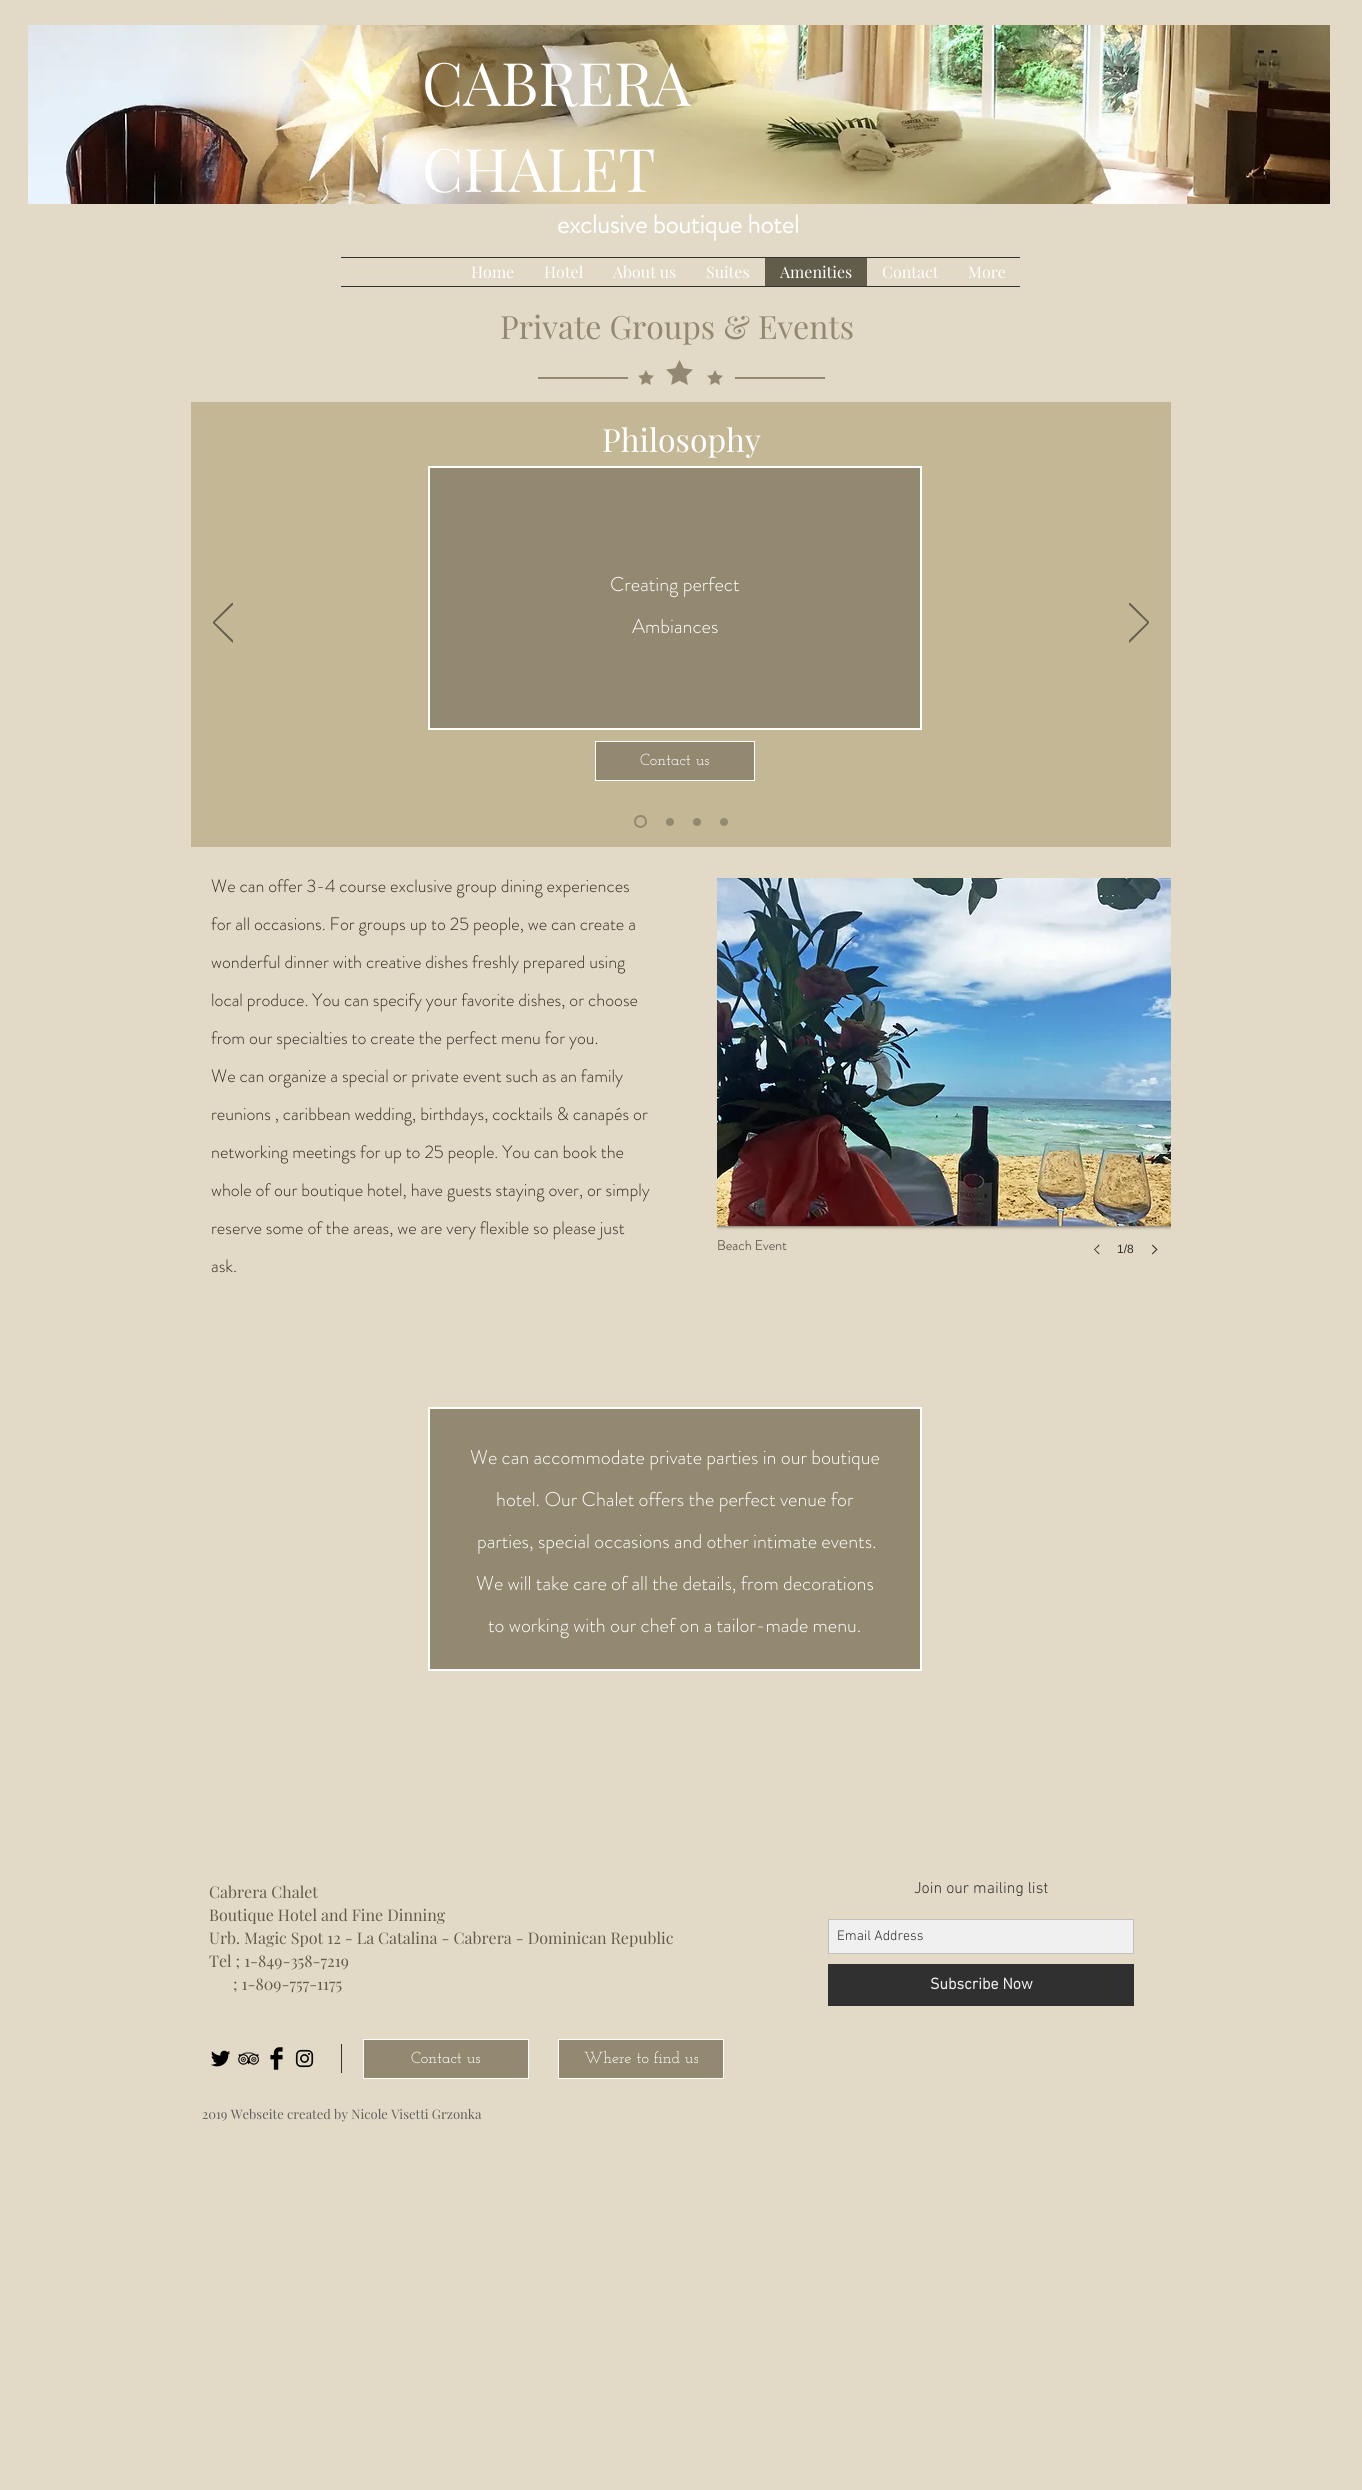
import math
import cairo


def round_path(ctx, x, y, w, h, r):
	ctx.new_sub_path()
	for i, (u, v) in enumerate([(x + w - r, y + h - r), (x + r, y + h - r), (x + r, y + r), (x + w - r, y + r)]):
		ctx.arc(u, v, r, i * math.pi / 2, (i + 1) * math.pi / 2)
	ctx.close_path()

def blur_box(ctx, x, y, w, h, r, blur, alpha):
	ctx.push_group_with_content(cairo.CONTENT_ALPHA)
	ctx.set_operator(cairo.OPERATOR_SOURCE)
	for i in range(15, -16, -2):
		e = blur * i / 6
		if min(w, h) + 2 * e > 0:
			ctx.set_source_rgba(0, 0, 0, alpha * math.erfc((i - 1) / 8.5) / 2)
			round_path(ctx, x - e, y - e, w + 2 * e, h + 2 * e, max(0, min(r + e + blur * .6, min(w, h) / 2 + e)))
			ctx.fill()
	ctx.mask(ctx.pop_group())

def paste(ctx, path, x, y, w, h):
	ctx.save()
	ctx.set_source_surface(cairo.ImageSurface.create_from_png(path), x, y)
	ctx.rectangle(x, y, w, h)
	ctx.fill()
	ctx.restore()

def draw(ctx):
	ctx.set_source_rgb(0.886, 0.855, 0.776)
	ctx.paint()
	paste(ctx, 'media/1.png', 28, 25, 1302, 179)
	ctx.select_font_face('Playfair Display')
	ctx.set_font_size(60)
	ctx.set_source_rgb(1, 1, 1)
	ctx.move_to(422, 106)
	ctx.show_text('CABRERA')
	ctx.move_to(422, 192)
	ctx.show_text('CHALET')
	ctx.select_font_face('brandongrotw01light', cairo.FONT_SLANT_NORMAL, cairo.FONT_WEIGHT_BOLD)
	ctx.set_font_size(26)
	ctx.move_to(557, 233)
	ctx.show_text('exclusive boutique hotel')
	ctx.set_source_rgb(0.188, 0.188, 0.188)
	ctx.rectangle(341, 257, 679, 1)
	ctx.fill()
	ctx.rectangle(341, 286, 679, 1)
	ctx.fill()
	ctx.select_font_face('Playfair Display')
	ctx.set_font_size(16)
	ctx.set_source_rgb(1, 1, 1)
	for x, y, s in [
		(471, 278, 'Home'),
		(544, 278, 'Hotel'),
		(613, 278, 'About us'),
		(706, 278, 'Suites'),
	]:
		ctx.move_to(x, y)
		ctx.show_text(s)
	ctx.set_source_rgb(0.384, 0.361, 0.294)
	ctx.rectangle(765, 258, 102, 28)
	ctx.fill()
	ctx.set_source_rgb(1, 1, 1)
	for x, y, s in [
		(780, 278, 'Amenities'),
		(882, 278, 'Contact'),
		(968, 278, 'More'),
	]:
		ctx.move_to(x, y)
		ctx.show_text(s)
	ctx.set_font_size(32)
	ctx.set_source_rgb(0.576, 0.537, 0.439)
	ctx.move_to(500, 339)
	ctx.show_text('Private Groups & Events')
	ctx.rectangle(538, 377, 90, 2)
	ctx.fill()
	paste(ctx, 'media/2.png', 638, 370, 16, 15)
	paste(ctx, 'media/3.png', 666, 360, 27, 25)
	paste(ctx, 'media/2.png', 707, 370, 16, 15)
	ctx.rectangle(735, 377, 90, 2)
	ctx.fill()
	ctx.set_source_rgb(0.769, 0.718, 0.584)
	ctx.rectangle(191, 402, 980, 445)
	ctx.fill()
	ctx.save()
	ctx.rectangle(213, 603, 20, 40)
	ctx.clip()
	ctx.new_path()
	ctx.move_to(232.5, 642)
	ctx.line_to(213, 622.5)
	ctx.line_to(232.5, 603)
	ctx.line_to(233, 604)
	ctx.line_to(214, 622.5)
	ctx.line_to(233, 641)
	ctx.close_path()
	ctx.set_source_rgb(0.384, 0.361, 0.294)
	ctx.set_line_width(1)
	ctx.stroke()
	ctx.restore()
	ctx.set_source_rgb(1, 1, 1)
	ctx.move_to(602, 452)
	ctx.show_text('Philosophy')
	ctx.set_source_rgb(0.576, 0.537, 0.439)
	ctx.rectangle(429, 467, 492, 262)
	ctx.fill_preserve()
	ctx.set_source_rgb(1, 1, 1)
	ctx.stroke()
	ctx.select_font_face('brandongrotw01light Light')
	ctx.set_font_size(20)
	ctx.move_to(610, 591)
	ctx.show_text('Creating perfect')
	ctx.move_to(632, 633)
	ctx.show_text('Ambiances')
	ctx.set_source_rgb(0.576, 0.537, 0.439)
	ctx.rectangle(595.5, 741.5, 159, 39)
	ctx.fill_preserve()
	ctx.set_source_rgb(1, 1, 1)
	ctx.set_line_width(1)
	ctx.stroke()
	ctx.select_font_face('Josefin Slab')
	ctx.set_font_size(16)
	ctx.move_to(640, 765)
	ctx.show_text('Contact us')
	ctx.save()
	ctx.rectangle(1129, 603, 20, 40)
	ctx.clip()
	ctx.new_path()
	ctx.move_to(1129.5, 642)
	ctx.line_to(1149, 622.5)
	ctx.line_to(1129.5, 603)
	ctx.line_to(1129, 604)
	ctx.line_to(1148, 622.5)
	ctx.line_to(1129, 641)
	ctx.close_path()
	ctx.set_source_rgb(0.384, 0.361, 0.294)
	ctx.stroke()
	ctx.restore()
	ctx.arc(640.5, 821.5, 5.5, 0, 2 * math.pi)
	ctx.set_source_rgb(0.576, 0.537, 0.439)
	ctx.set_line_width(2)
	ctx.stroke()
	ctx.arc(670, 822, 4, 0, 2 * math.pi)
	ctx.fill()
	ctx.arc(697, 822, 4, 0, 2 * math.pi)
	ctx.fill()
	ctx.arc(724, 822, 4, 0, 2 * math.pi)
	ctx.fill()
	ctx.select_font_face('brandongrotw01light Light')
	ctx.set_font_size(18)
	ctx.set_source_rgb(0.192, 0.18, 0.145)
	for x, y, s in [
		(211, 892, 'We can offer 3-4 course exclusive group dining experiences'),
		(211, 930, 'for all occasions. For groups up to 25 people, we can create a'),
		(211, 968, 'wonderful dinner with creative dishes freshly prepared using'),
		(211, 1006, 'local produce. You can specify your favorite dishes, or choose'),
		(211, 1044, 'from our specialties to create the perfect menu for you.'),
		(211, 1082, 'We can organize a special or private event such as an family'),
		(211, 1120, 'reunions , caribbean wedding, birthdays, cocktails & canapés or'),
		(211, 1158, 'networking meetings for up to 25 people. You can book the'),
		(211, 1196, 'whole of our boutique hotel, have guests staying over, or simply'),
		(211, 1234, 'reserve some of the areas, we are very flexible so please just'),
		(211, 1272, 'ask.'),
	]:
		ctx.move_to(x, y)
		ctx.show_text(s)
	ctx.save()
	ctx.rectangle(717, 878, 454, 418)
	ctx.clip()
	ctx.set_source_rgb(0, 0, 0)
	blur_box(ctx, 717, 879, 454, 348, 0, 1.5, 0.5)
	ctx.restore()
	paste(ctx, 'media/4.png', 717, 878, 454, 348)
	ctx.set_font_size(14)
	ctx.move_to(717, 1250)
	ctx.show_text('Beach Event')
	ctx.new_path()
	ctx.move_to(1094, 1249.5)
	ctx.line_to(1099, 1244.5)
	ctx.line_to(1099.5, 1245.5)
	ctx.line_to(1094.5, 1250)
	ctx.close_path()
	ctx.fill()
	ctx.new_path()
	ctx.move_to(1094, 1249.5)
	ctx.line_to(1094.5, 1249)
	ctx.line_to(1099.5, 1253.5)
	ctx.line_to(1099, 1254.5)
	ctx.close_path()
	ctx.fill()
	ctx.select_font_face('Liberation Sans')
	ctx.set_font_size(12)
	ctx.move_to(1117, 1253)
	ctx.show_text('1/8')
	ctx.new_path()
	ctx.move_to(1152, 1245.5)
	ctx.line_to(1152.5, 1244.5)
	ctx.line_to(1157.5, 1249.5)
	ctx.line_to(1156.5, 1250)
	ctx.close_path()
	ctx.fill()
	ctx.new_path()
	ctx.move_to(1152, 1253.5)
	ctx.line_to(1156.5, 1249)
	ctx.line_to(1157.5, 1249.5)
	ctx.line_to(1152.5, 1254.5)
	ctx.close_path()
	ctx.fill()
	ctx.set_source_rgb(0.576, 0.537, 0.439)
	ctx.rectangle(429, 1408, 492, 262)
	ctx.fill_preserve()
	ctx.set_source_rgb(1, 1, 1)
	ctx.stroke()
	ctx.select_font_face('brandongrotw01light Light')
	ctx.set_font_size(20)
	for x, y, s in [
		(470, 1464, 'We can accommodate private parties in our boutique'),
		(496, 1506, 'hotel. Our Chalet offers the perfect venue for'),
		(477, 1548, 'parties, special occasions and other intimate events.'),
		(476, 1590, 'We will take care of all the details, from decorations'),
		(488, 1632, 'to working with our chef on a tailor-made menu.'),
	]:
		ctx.move_to(x, y)
		ctx.show_text(s)
	ctx.select_font_face('Playfair Display')
	ctx.set_font_size(16)
	ctx.set_source_rgb(0.384, 0.361, 0.294)
	for x, y, s in [
		(209, 1898, 'Cabrera Chalet'),
		(209, 1921, 'Boutique Hotel and Fine Dinning'),
		(209, 1944, 'Urb. Magic Spot 12 - La Catalina - Cabrera - Dominican Republic'),
		(209, 1967, 'Tel ; 1-849-358-7219'),
		(233, 1990, '; 1-809-757-1175'),
	]:
		ctx.move_to(x, y)
		ctx.show_text(s)
	ctx.select_font_face('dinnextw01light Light')
	ctx.set_source_rgb(0.188, 0.188, 0.188)
	ctx.move_to(914, 1893)
	ctx.show_text('Join our mailing list')
	ctx.set_source_rgb(0.941, 0.941, 0.941)
	ctx.rectangle(828.5, 1919.5, 305, 34)
	ctx.fill_preserve()
	ctx.set_source_rgb(0.753, 0.753, 0.753)
	ctx.set_line_width(1)
	ctx.stroke()
	ctx.set_font_size(14)
	ctx.set_source_rgb(0.188, 0.188, 0.188)
	ctx.move_to(837, 1940)
	ctx.show_text('Email Address')
	ctx.rectangle(828, 1964, 306, 42)
	ctx.fill()
	ctx.select_font_face('dinnextw01light', cairo.FONT_SLANT_NORMAL, cairo.FONT_WEIGHT_BOLD)
	ctx.set_font_size(16)
	ctx.set_source_rgb(0.941, 0.941, 0.941)
	ctx.move_to(930, 1989)
	ctx.show_text('Subscribe Now')
	paste(ctx, 'media/5.png', 211, 2050, 20, 17)
	paste(ctx, 'media/6.png', 238, 2052, 22, 13)
	paste(ctx, 'media/7.png', 270, 2047, 13, 23)
	paste(ctx, 'media/8.png', 295, 2049, 19, 19)
	ctx.set_source_rgb(0.188, 0.188, 0.188)
	ctx.rectangle(341, 2044, 1, 29)
	ctx.fill()
	ctx.set_source_rgb(0.576, 0.537, 0.439)
	ctx.rectangle(363.5, 2039.5, 165, 39)
	ctx.fill_preserve()
	ctx.set_source_rgb(1, 1, 1)
	ctx.stroke()
	ctx.select_font_face('Josefin Slab')
	ctx.move_to(411, 2063)
	ctx.show_text('Contact us')
	ctx.set_source_rgb(0.576, 0.537, 0.439)
	ctx.rectangle(558.5, 2039.5, 165, 39)
	ctx.fill_preserve()
	ctx.set_source_rgb(1, 1, 1)
	ctx.stroke()
	ctx.move_to(584, 2063)
	ctx.show_text('Where to find us')
	ctx.select_font_face('Playfair Display')
	ctx.set_font_size(13)
	ctx.set_source_rgb(0.376, 0.376, 0.376)
	ctx.move_to(202, 2119)
	ctx.show_text('2019 Webseite created by Nicole Visetti Grzonka')


surface = cairo.ImageSurface(cairo.FORMAT_RGB24, 1362, 2490)
ctx = cairo.Context(surface)
options = cairo.FontOptions()
options.set_hint_metrics(cairo.HINT_METRICS_OFF)
options.set_hint_style(cairo.HINT_STYLE_NONE)
ctx.set_font_options(options)
ctx.set_miter_limit(4)
draw(ctx)
surface.write_to_png('image.png')
